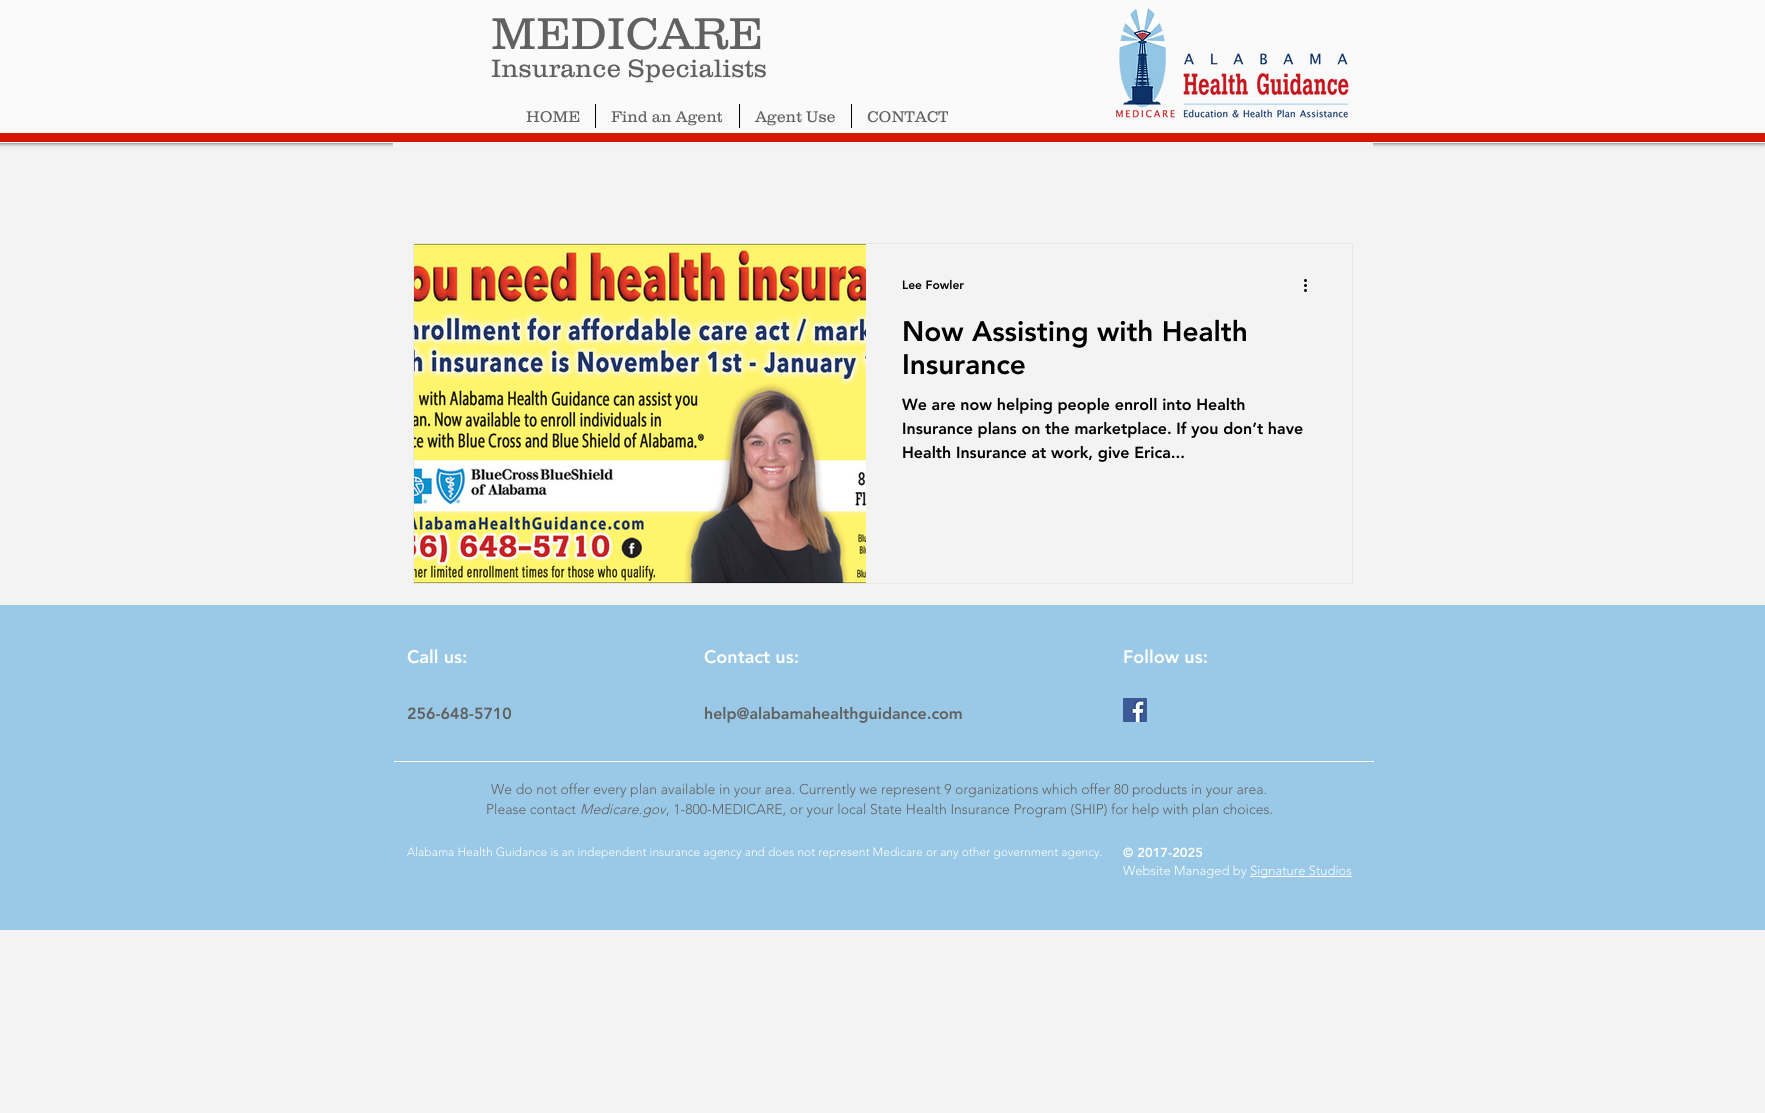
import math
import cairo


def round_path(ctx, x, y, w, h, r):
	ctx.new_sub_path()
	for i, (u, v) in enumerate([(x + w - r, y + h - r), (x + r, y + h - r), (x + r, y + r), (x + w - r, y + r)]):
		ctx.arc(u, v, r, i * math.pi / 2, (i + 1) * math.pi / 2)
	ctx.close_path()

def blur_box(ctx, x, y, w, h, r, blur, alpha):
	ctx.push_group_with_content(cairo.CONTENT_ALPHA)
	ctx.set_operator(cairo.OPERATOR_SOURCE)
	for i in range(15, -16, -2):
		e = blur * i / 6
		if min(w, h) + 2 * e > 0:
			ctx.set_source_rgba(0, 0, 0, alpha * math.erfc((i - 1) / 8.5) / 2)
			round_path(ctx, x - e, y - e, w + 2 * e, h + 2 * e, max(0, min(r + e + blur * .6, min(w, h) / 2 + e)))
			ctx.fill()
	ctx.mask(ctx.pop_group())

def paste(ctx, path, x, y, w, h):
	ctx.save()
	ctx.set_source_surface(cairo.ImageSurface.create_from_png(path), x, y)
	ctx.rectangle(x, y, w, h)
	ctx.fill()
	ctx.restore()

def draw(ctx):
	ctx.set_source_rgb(0.953, 0.953, 0.953)
	ctx.paint()
	ctx.set_source_rgb(0, 0, 0)
	blur_box(ctx, 0, 0, 1765, 143, 0, 2.5, 0.7)
	ctx.set_source_rgb(0.98, 0.98, 0.98)
	ctx.rectangle(0, 0, 1765, 143)
	ctx.fill()
	ctx.select_font_face('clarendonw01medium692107 Light')
	ctx.set_font_size(46)
	ctx.set_source_rgb(0.38, 0.38, 0.38)
	ctx.move_to(491, 49)
	ctx.show_text('MEDICARE')
	paste(ctx, 'media/1.png', 1116, 8, 233, 110)
	ctx.set_font_size(26)
	ctx.move_to(491, 77)
	ctx.show_text('Insurance Specialists')
	ctx.set_font_size(16)
	ctx.move_to(526, 122)
	ctx.show_text('HOME')
	ctx.set_source_rgb(0, 0, 0)
	ctx.rectangle(595, 104, 1, 24)
	ctx.fill()
	ctx.set_source_rgb(0.38, 0.38, 0.38)
	ctx.move_to(611, 122)
	ctx.show_text('Find an Agent')
	ctx.set_source_rgb(0, 0, 0)
	ctx.rectangle(739, 104, 1, 24)
	ctx.fill()
	ctx.set_source_rgb(0.38, 0.38, 0.38)
	ctx.move_to(755, 122)
	ctx.show_text('Agent Use')
	ctx.set_source_rgb(0, 0, 0)
	ctx.rectangle(851, 104, 1, 24)
	ctx.fill()
	ctx.set_source_rgb(0.38, 0.38, 0.38)
	ctx.move_to(867, 122)
	ctx.show_text('CONTACT')
	ctx.set_source_rgb(0.835, 0.086, 0)
	ctx.rectangle(0, 133, 1765, 9)
	ctx.fill()
	ctx.set_source_rgb(0.953, 0.953, 0.953)
	ctx.rectangle(393, 143, 980, 5)
	ctx.fill()
	ctx.rectangle(413.5, 243.5, 939, 340)
	ctx.set_source_rgb(0.906, 0.906, 0.906)
	ctx.set_line_width(1)
	ctx.stroke()
	paste(ctx, 'media/2.png', 414, 244, 452, 339)
	ctx.select_font_face('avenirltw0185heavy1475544 Black')
	ctx.set_font_size(12)
	ctx.set_source_rgb(0, 0, 0)
	ctx.move_to(902, 289)
	ctx.show_text('Lee Fowler')
	paste(ctx, 'media/3.png', 1304, 279, 3, 13)
	ctx.set_font_size(28)
	ctx.move_to(902, 341)
	ctx.show_text('Now Assisting with Health')
	ctx.move_to(902, 374)
	ctx.show_text('Insurance')
	ctx.set_font_size(16)
	for x, y, s in [
		(902, 410, 'We are now helping people enroll into Health'),
		(902, 434, 'Insurance plans on the marketplace. If you don’t have'),
		(902, 458, 'Health Insurance at work, give Erica...'),
	]:
		ctx.move_to(x, y)
		ctx.show_text(s)
	ctx.set_source_rgb(0.6, 0.788, 0.902)
	ctx.rectangle(0, 605, 1765, 325)
	ctx.fill()
	ctx.set_font_size(18)
	ctx.set_source_rgb(1, 1, 1)
	for x, y, s in [
		(407, 663, 'Call us:'),
		(704, 663, 'Contact us:'),
		(1123, 663, 'Follow us:'),
	]:
		ctx.move_to(x, y)
		ctx.show_text(s)
	ctx.set_font_size(16)
	ctx.set_source_rgb(0.38, 0.38, 0.38)
	ctx.move_to(407, 719)
	ctx.show_text('256-648-5710')
	ctx.move_to(704, 719)
	ctx.show_text('help@alabamahealthguidance.com')
	paste(ctx, 'media/4.png', 1123, 698, 24, 24)
	ctx.set_source_rgb(1, 1, 1)
	ctx.rectangle(394, 761, 980, 1)
	ctx.fill()
	ctx.select_font_face('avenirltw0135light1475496 Light')
	ctx.set_font_size(14)
	ctx.set_source_rgb(0.38, 0.38, 0.38)
	ctx.move_to(491, 794)
	ctx.show_text('We do not offer every plan available in your area. Currently we represent 9 organizations which offer 80 products in your area.')
	ctx.move_to(486, 814)
	ctx.show_text('Please contact')
	ctx.select_font_face('avenirltw0135light1475496 Light', cairo.FONT_SLANT_ITALIC)
	ctx.move_to(580, 814)
	ctx.show_text('Medicare.gov')
	ctx.select_font_face('avenirltw0135light1475496 Light')
	ctx.move_to(666, 814)
	ctx.show_text(', 1-800-MEDICARE, or your local State Health Insurance Program (SHIP) for help with plan choices.')
	ctx.set_font_size(12)
	ctx.set_source_rgb(1, 1, 1)
	ctx.move_to(407, 856)
	ctx.show_text('Alabama Health Guidance is an independent insurance agency and does not represent Medicare or any other government agency.')
	ctx.select_font_face('avenirltw0185heavy1475544 Black')
	ctx.set_font_size(13)
	ctx.move_to(1123, 857)
	ctx.show_text('© 2017-2025')
	ctx.select_font_face('avenirltw0135light1475496 Light')
	ctx.move_to(1123, 875)
	ctx.show_text('Website Managed by')
	ctx.rectangle(1250, 876, 102, 1)
	ctx.fill()
	ctx.move_to(1250, 875)
	ctx.show_text('Signature Studios')


surface = cairo.ImageSurface(cairo.FORMAT_RGB24, 1765, 1113)
ctx = cairo.Context(surface)
options = cairo.FontOptions()
options.set_hint_metrics(cairo.HINT_METRICS_OFF)
options.set_hint_style(cairo.HINT_STYLE_NONE)
ctx.set_font_options(options)
ctx.set_miter_limit(4)
draw(ctx)
surface.write_to_png('image.png')
